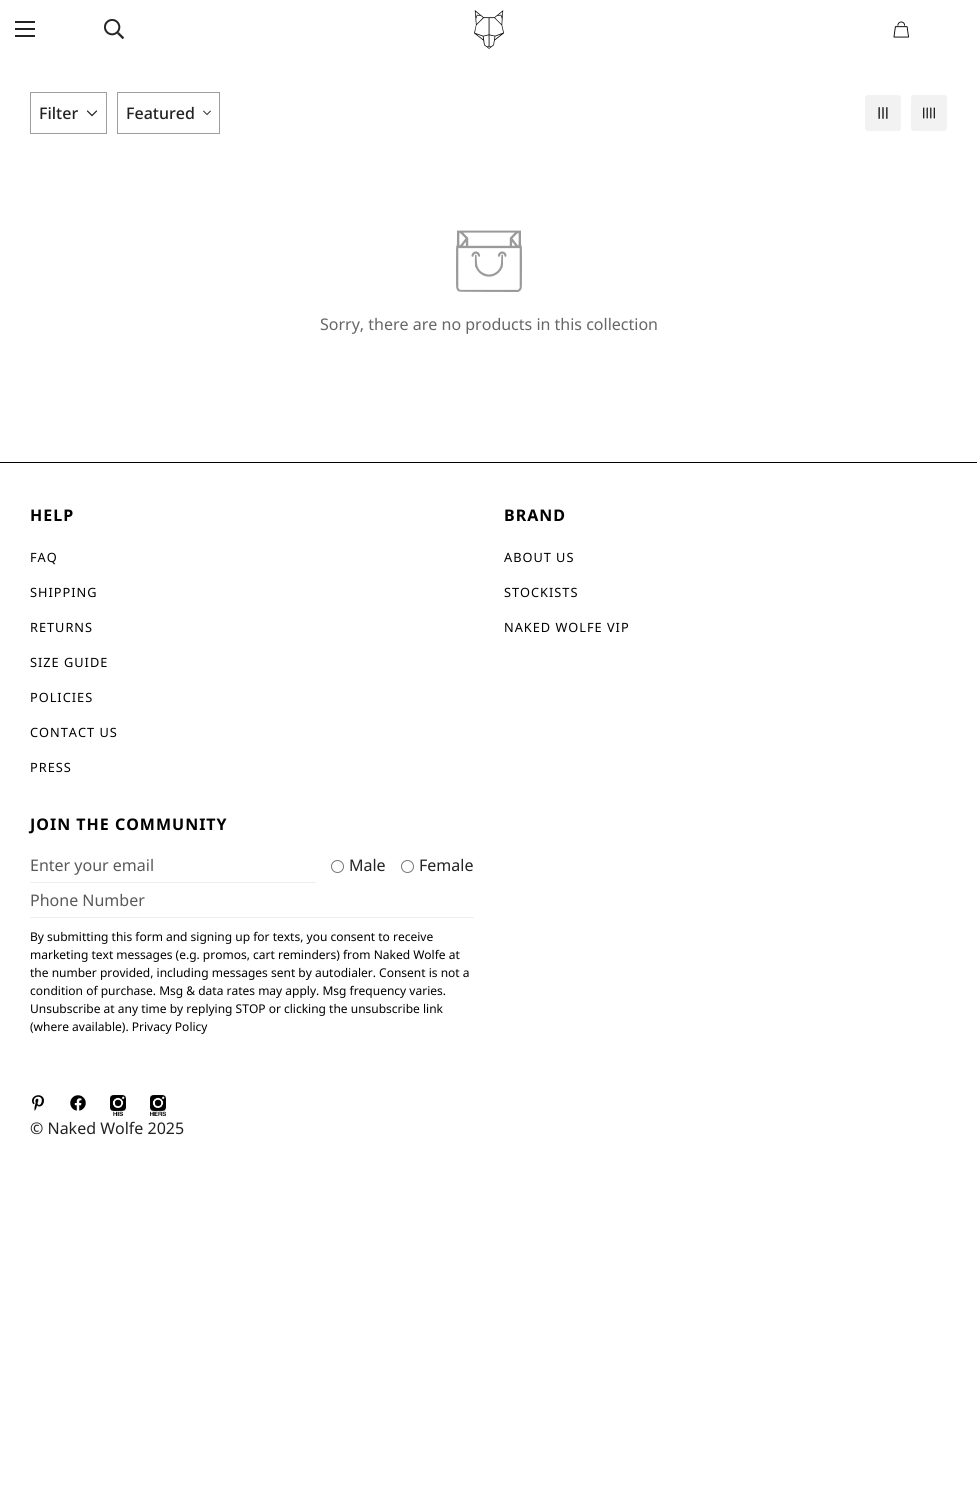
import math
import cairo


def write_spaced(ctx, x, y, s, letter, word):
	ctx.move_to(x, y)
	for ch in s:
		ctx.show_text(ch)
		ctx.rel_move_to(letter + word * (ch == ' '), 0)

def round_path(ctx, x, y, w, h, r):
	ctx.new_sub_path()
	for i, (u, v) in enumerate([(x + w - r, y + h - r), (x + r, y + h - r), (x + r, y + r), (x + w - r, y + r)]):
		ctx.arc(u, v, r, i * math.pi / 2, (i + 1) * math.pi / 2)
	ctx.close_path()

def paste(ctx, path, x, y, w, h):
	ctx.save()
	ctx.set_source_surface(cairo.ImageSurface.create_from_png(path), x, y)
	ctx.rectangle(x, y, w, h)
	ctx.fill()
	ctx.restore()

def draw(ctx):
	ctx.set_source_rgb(1, 1, 1)
	ctx.paint()
	ctx.set_source_rgb(0.133, 0.133, 0.133)
	ctx.rectangle(15, 28, 20, 2)
	ctx.rectangle(15, 21, 20, 2)
	ctx.rectangle(15, 35, 20, 2)
	ctx.fill()
	paste(ctx, 'media/1.png', 104, 19, 20, 20)
	paste(ctx, 'media/2.png', 474, 10, 30, 39)
	paste(ctx, 'media/3.png', 893, 21, 16, 17)
	ctx.rectangle(30.5, 92.5, 76, 41)
	ctx.set_source_rgb(0.62, 0.62, 0.62)
	ctx.set_line_width(1)
	ctx.stroke()
	ctx.select_font_face('Noto Sans Medium')
	ctx.set_font_size(16)
	ctx.set_source_rgb(0.133, 0.133, 0.133)
	ctx.move_to(39, 119)
	ctx.show_text('Filter')
	paste(ctx, 'media/4.png', 86, 110, 12, 7)
	ctx.rectangle(117.5, 92.5, 102, 41)
	ctx.set_source_rgb(0.62, 0.62, 0.62)
	ctx.stroke()
	ctx.set_source_rgb(0.133, 0.133, 0.133)
	ctx.move_to(126, 119)
	ctx.show_text('Featured')
	paste(ctx, 'media/5.png', 203, 110, 8, 5)
	ctx.set_source_rgb(0.949, 0.949, 0.949)
	round_path(ctx, 865, 95, 36, 36, 3)
	ctx.fill()
	paste(ctx, 'media/6.png', 878, 107, 10, 12)
	round_path(ctx, 911, 95, 36, 36, 3)
	ctx.fill()
	paste(ctx, 'media/7.png', 923, 107, 12, 12)
	paste(ctx, 'media/8.png', 456, 230, 66, 62)
	ctx.select_font_face('Noto Sans')
	ctx.set_source_rgb(0.4, 0.4, 0.4)
	ctx.move_to(320, 330)
	ctx.show_text('Sorry, there are no products in this collection')
	ctx.set_source_rgb(0, 0, 0)
	ctx.rectangle(0, 462, 977, 1)
	ctx.fill()
	ctx.select_font_face('Noto Sans', cairo.FONT_SLANT_NORMAL, cairo.FONT_WEIGHT_BOLD)
	write_spaced(ctx, 30, 521, 'HELP', 1, 0)
	ctx.select_font_face('Noto Sans')
	ctx.set_font_size(12.75)
	for x, y, s in [
		(30, 562, 'FAQ'),
		(30, 597, 'SHIPPING'),
		(30, 632, 'RETURNS'),
		(30, 667, 'SIZE GUIDE'),
		(30, 702, 'POLICIES'),
		(30, 737, 'CONTACT US'),
		(30, 772, 'PRESS'),
	]:
		write_spaced(ctx, x, y, s, 1, 0)
	ctx.select_font_face('Noto Sans', cairo.FONT_SLANT_NORMAL, cairo.FONT_WEIGHT_BOLD)
	ctx.set_font_size(16)
	write_spaced(ctx, 504, 521, 'BRAND', 1, 0)
	ctx.select_font_face('Noto Sans')
	ctx.set_font_size(12.75)
	for x, y, s in [
		(504, 562, 'ABOUT US'),
		(504, 597, 'STOCKISTS'),
		(504, 632, 'NAKED WOLFE VIP'),
	]:
		write_spaced(ctx, x, y, s, 1, 0)
	ctx.select_font_face('Noto Sans', cairo.FONT_SLANT_NORMAL, cairo.FONT_WEIGHT_BOLD)
	ctx.set_font_size(16)
	write_spaced(ctx, 30, 830, 'JOIN THE COMMUNITY', 1, 0)
	ctx.set_source_rgb(0.933, 0.933, 0.933)
	ctx.rectangle(30, 882, 286, 1)
	ctx.fill()
	ctx.select_font_face('Noto Sans')
	ctx.set_source_rgb(0.349, 0.349, 0.349)
	ctx.move_to(30, 871)
	ctx.show_text('Enter your email')
	ctx.new_path()
	ctx.arc(337.5, 866.5, 6, 0, 2 * math.pi)
	ctx.set_source_rgb(0.463, 0.463, 0.463)
	ctx.stroke()
	ctx.set_source_rgb(0.133, 0.133, 0.133)
	ctx.move_to(349, 871)
	ctx.show_text('Male')
	ctx.new_path()
	ctx.arc(407.5, 866.5, 6, 0, 2 * math.pi)
	ctx.set_source_rgb(0.463, 0.463, 0.463)
	ctx.stroke()
	ctx.set_source_rgb(0.133, 0.133, 0.133)
	ctx.move_to(419, 871)
	ctx.show_text('Female')
	ctx.set_source_rgb(0.933, 0.933, 0.933)
	ctx.rectangle(30, 917, 444, 1)
	ctx.fill()
	ctx.set_source_rgb(0.349, 0.349, 0.349)
	ctx.move_to(30, 906)
	ctx.show_text('Phone Number')
	ctx.set_font_size(12)
	ctx.set_source_rgb(0, 0, 0)
	for x, y, s in [
		(30, 941, 'By submitting this form and signing up for texts, you consent to receive'),
		(30, 959, 'marketing text messages (e.g. promos, cart reminders) from Naked Wolfe at'),
		(30, 977, 'the number provided, including messages sent by autodialer. Consent is not a'),
		(30, 995, 'condition of purchase. Msg & data rates may apply. Msg frequency varies.'),
		(30, 1013, 'Unsubscribe at any time by replying STOP or clicking the unsubscribe link'),
		(30, 1031, '(where available). Privacy Policy'),
	]:
		ctx.move_to(x, y)
		ctx.show_text(s)
	paste(ctx, 'media/9.png', 32, 1095, 12, 16)
	paste(ctx, 'media/10.png', 70, 1095, 16, 16)
	paste(ctx, 'media/11.png', 110, 1095, 16, 21)
	paste(ctx, 'media/12.png', 150, 1095, 16, 21)
	ctx.set_font_size(16)
	ctx.set_source_rgb(0.133, 0.133, 0.133)
	ctx.move_to(30, 1134)
	ctx.show_text('© Naked Wolfe 2025')


surface = cairo.ImageSurface(cairo.FORMAT_RGB24, 977, 1488)
ctx = cairo.Context(surface)
options = cairo.FontOptions()
options.set_hint_metrics(cairo.HINT_METRICS_OFF)
options.set_hint_style(cairo.HINT_STYLE_NONE)
ctx.set_font_options(options)
ctx.set_miter_limit(4)
draw(ctx)
surface.write_to_png('image.png')
